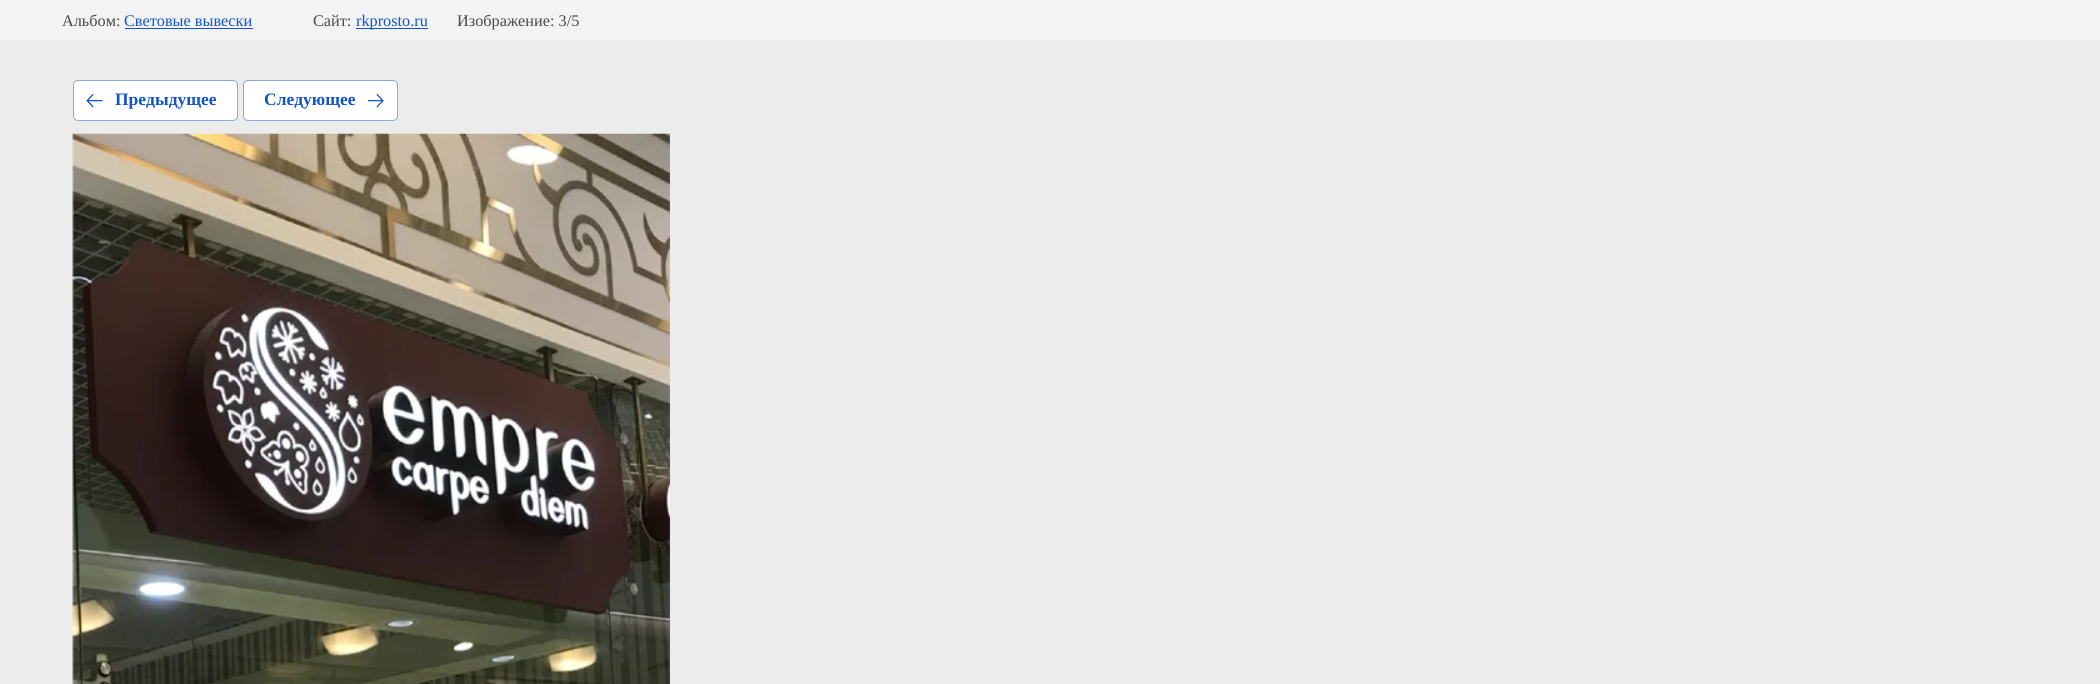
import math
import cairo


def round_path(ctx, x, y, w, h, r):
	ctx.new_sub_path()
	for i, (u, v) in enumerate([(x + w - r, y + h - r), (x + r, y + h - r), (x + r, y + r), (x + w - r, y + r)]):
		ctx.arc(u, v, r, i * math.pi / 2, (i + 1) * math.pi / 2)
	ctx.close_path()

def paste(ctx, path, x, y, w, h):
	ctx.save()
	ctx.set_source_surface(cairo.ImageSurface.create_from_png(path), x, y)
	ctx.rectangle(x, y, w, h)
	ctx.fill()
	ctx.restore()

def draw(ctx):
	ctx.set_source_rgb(0.925, 0.925, 0.925)
	ctx.paint()
	ctx.set_source_rgb(0.953, 0.953, 0.953)
	ctx.rectangle(0, 0, 2100, 40)
	ctx.fill()
	ctx.select_font_face('Liberation Serif')
	ctx.set_font_size(16.25)
	ctx.set_source_rgb(0.282, 0.282, 0.282)
	ctx.move_to(62, 26)
	ctx.show_text('Альбом:')
	ctx.set_source_rgb(0.067, 0.333, 0.8)
	ctx.move_to(124, 26)
	ctx.show_text('Световые вывески')
	ctx.rectangle(125, 28, 128, 1)
	ctx.fill()
	ctx.set_source_rgb(0.282, 0.282, 0.282)
	ctx.move_to(313, 26)
	ctx.show_text('Сайт:')
	ctx.set_source_rgb(0.067, 0.333, 0.8)
	ctx.rectangle(356, 28, 72, 1)
	ctx.fill()
	ctx.move_to(356, 26)
	ctx.show_text('rkprosto.ru')
	ctx.set_source_rgb(0.282, 0.282, 0.282)
	ctx.move_to(457, 26)
	ctx.show_text('Изображение: 3/5')
	ctx.set_source_rgb(1, 1, 1)
	round_path(ctx, 73, 80, 165, 41, 5)
	ctx.fill()
	round_path(ctx, 73.5, 80.5, 164, 40, 4.5)
	ctx.set_source_rgba(0.067, 0.333, 0.8, 0.5)
	ctx.set_line_width(1)
	ctx.stroke()
	paste(ctx, 'media/1.png', 86, 94, 17, 14)
	ctx.select_font_face('Liberation Serif', cairo.FONT_SLANT_NORMAL, cairo.FONT_WEIGHT_BOLD)
	ctx.set_font_size(17.5)
	ctx.set_source_rgb(0.067, 0.333, 0.8)
	ctx.move_to(115, 105)
	ctx.show_text('Предыдущее')
	ctx.set_source_rgb(1, 1, 1)
	round_path(ctx, 243, 80, 155, 41, 5)
	ctx.fill()
	round_path(ctx, 243.5, 80.5, 154, 40, 4.5)
	ctx.set_source_rgba(0.067, 0.333, 0.8, 0.5)
	ctx.stroke()
	ctx.set_source_rgb(0.067, 0.333, 0.8)
	ctx.move_to(264, 105)
	ctx.show_text('Следующее')
	paste(ctx, 'media/2.png', 368, 94, 16, 14)
	paste(ctx, 'media/3.png', 72, 133, 598, 551)


surface = cairo.ImageSurface(cairo.FORMAT_RGB24, 2100, 684)
ctx = cairo.Context(surface)
options = cairo.FontOptions()
options.set_hint_metrics(cairo.HINT_METRICS_OFF)
options.set_hint_style(cairo.HINT_STYLE_NONE)
ctx.set_font_options(options)
ctx.set_miter_limit(4)
draw(ctx)
surface.write_to_png('image.png')
